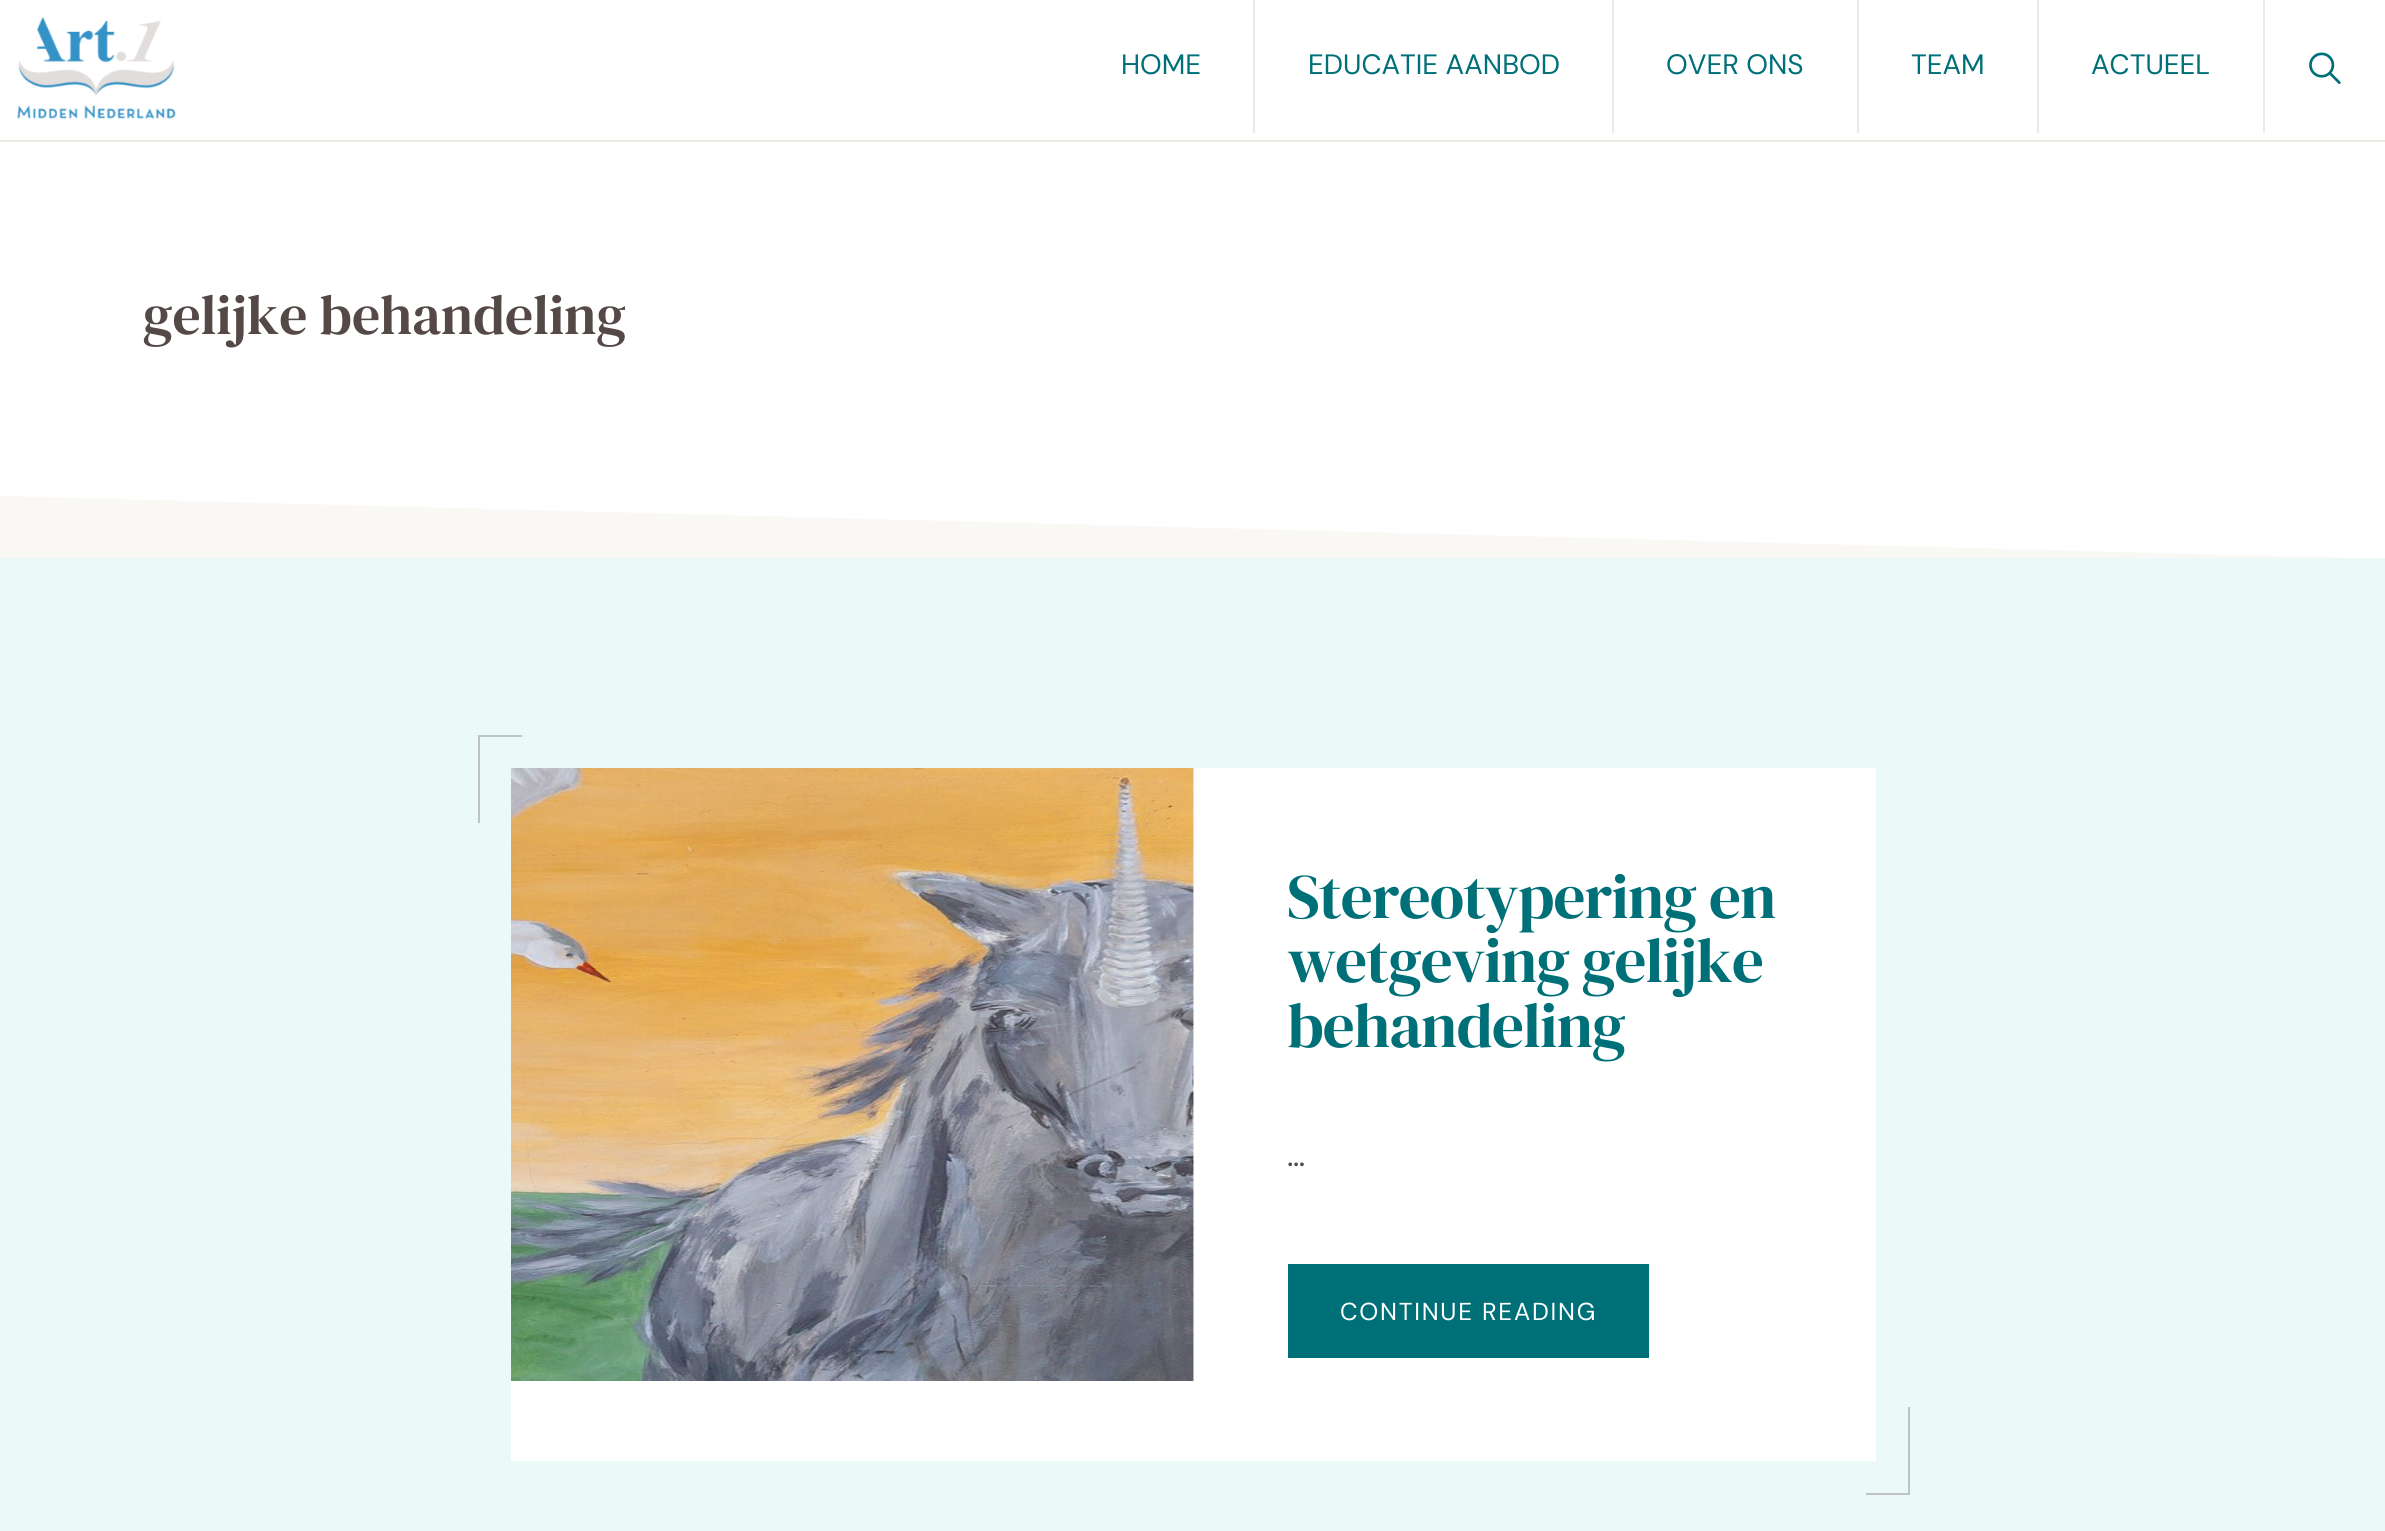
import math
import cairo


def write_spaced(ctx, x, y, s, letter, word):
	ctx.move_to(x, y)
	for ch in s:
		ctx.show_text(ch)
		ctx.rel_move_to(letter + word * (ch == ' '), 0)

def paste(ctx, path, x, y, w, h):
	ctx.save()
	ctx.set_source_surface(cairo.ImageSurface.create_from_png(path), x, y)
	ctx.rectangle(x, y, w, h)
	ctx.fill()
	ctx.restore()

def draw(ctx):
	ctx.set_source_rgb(0.98, 0.969, 0.957)
	ctx.paint()
	ctx.set_source_rgb(1, 1, 1)
	ctx.rectangle(0, 0, 2385, 140)
	ctx.fill()
	ctx.set_source_rgb(0.933, 0.914, 0.89)
	ctx.rectangle(0, 140, 2385, 2)
	ctx.fill()
	paste(ctx, 'media/1.png', 17, 17, 159, 102)
	ctx.rectangle(1253, 0, 2, 133)
	ctx.fill()
	ctx.select_font_face('DM Sans')
	ctx.set_font_size(28)
	ctx.set_source_rgb(0, 0.439, 0.471)
	ctx.move_to(1121, 74)
	ctx.show_text('HOME')
	ctx.set_source_rgb(0.933, 0.914, 0.89)
	ctx.rectangle(1612, 0, 2, 133)
	ctx.fill()
	ctx.set_source_rgb(0, 0.439, 0.471)
	ctx.move_to(1308, 74)
	ctx.show_text('EDUCATIE AANBOD')
	ctx.set_source_rgb(0.933, 0.914, 0.89)
	ctx.rectangle(1857, 0, 2, 133)
	ctx.fill()
	ctx.set_source_rgb(0, 0.439, 0.471)
	ctx.move_to(1666, 74)
	ctx.show_text('OVER ONS')
	ctx.set_source_rgb(0.933, 0.914, 0.89)
	ctx.rectangle(2037, 0, 2, 133)
	ctx.fill()
	ctx.set_source_rgb(0, 0.439, 0.471)
	ctx.move_to(1911, 74)
	ctx.show_text('TEAM')
	ctx.set_source_rgb(0.933, 0.914, 0.89)
	ctx.rectangle(2263, 0, 2, 133)
	ctx.fill()
	ctx.set_source_rgb(0, 0.439, 0.471)
	ctx.move_to(2091, 74)
	ctx.show_text('ACTUEEL')
	paste(ctx, 'media/2.png', 2309, 52, 32, 32)
	ctx.set_source_rgb(1, 1, 1)
	ctx.new_path()
	ctx.move_to(0, 142)
	ctx.line_to(0, 496)
	ctx.line_to(2350, 558)
	ctx.line_to(2385, 558)
	ctx.line_to(2385, 142)
	ctx.close_path()
	ctx.fill()
	ctx.select_font_face('DM Serif Text')
	ctx.set_font_size(56)
	ctx.set_source_rgb(0.333, 0.286, 0.282)
	ctx.move_to(143, 334)
	ctx.show_text('gelijke behandeling')
	ctx.set_source_rgb(0.925, 0.973, 0.973)
	ctx.rectangle(0, 558, 2385, 973)
	ctx.fill()
	ctx.set_source_rgb(1, 1, 1)
	ctx.rectangle(511, 768, 1365, 693)
	ctx.fill()
	ctx.set_source_rgb(0.749, 0.765, 0.765)
	ctx.rectangle(478, 735, 44, 2)
	ctx.rectangle(478, 735, 2, 88)
	ctx.fill()
	paste(ctx, 'media/3.png', 511, 768, 683, 613)
	ctx.select_font_face('DM Serif Display')
	ctx.set_font_size(63)
	ctx.set_source_rgb(0, 0.439, 0.471)
	for x, y, s in [
		(1287, 918, 'Stereotypering en'),
		(1287, 982, 'wetgeving gelijke'),
		(1287, 1047, 'behandeling'),
	]:
		write_spaced(ctx, x, y, s, -0.9, 0)
	ctx.select_font_face('DM Sans')
	ctx.set_font_size(32)
	ctx.set_source_rgb(0.333, 0.286, 0.282)
	ctx.move_to(1287, 1166)
	ctx.show_text('…')
	ctx.set_source_rgb(0, 0.439, 0.471)
	ctx.rectangle(1288, 1264, 361, 94)
	ctx.fill()
	ctx.set_font_size(24.5)
	ctx.set_source_rgb(1, 1, 1)
	write_spaced(ctx, 1340, 1320, 'CONTINUE READING', 1.75, 0)
	ctx.set_source_rgb(0.749, 0.765, 0.765)
	ctx.rectangle(1908, 1407, 2, 88)
	ctx.fill()
	ctx.rectangle(1866, 1493, 43, 2)
	ctx.fill()


surface = cairo.ImageSurface(cairo.FORMAT_RGB24, 2385, 1531)
ctx = cairo.Context(surface)
options = cairo.FontOptions()
options.set_hint_metrics(cairo.HINT_METRICS_OFF)
options.set_hint_style(cairo.HINT_STYLE_NONE)
ctx.set_font_options(options)
ctx.set_miter_limit(4)
draw(ctx)
surface.write_to_png('image.png')
